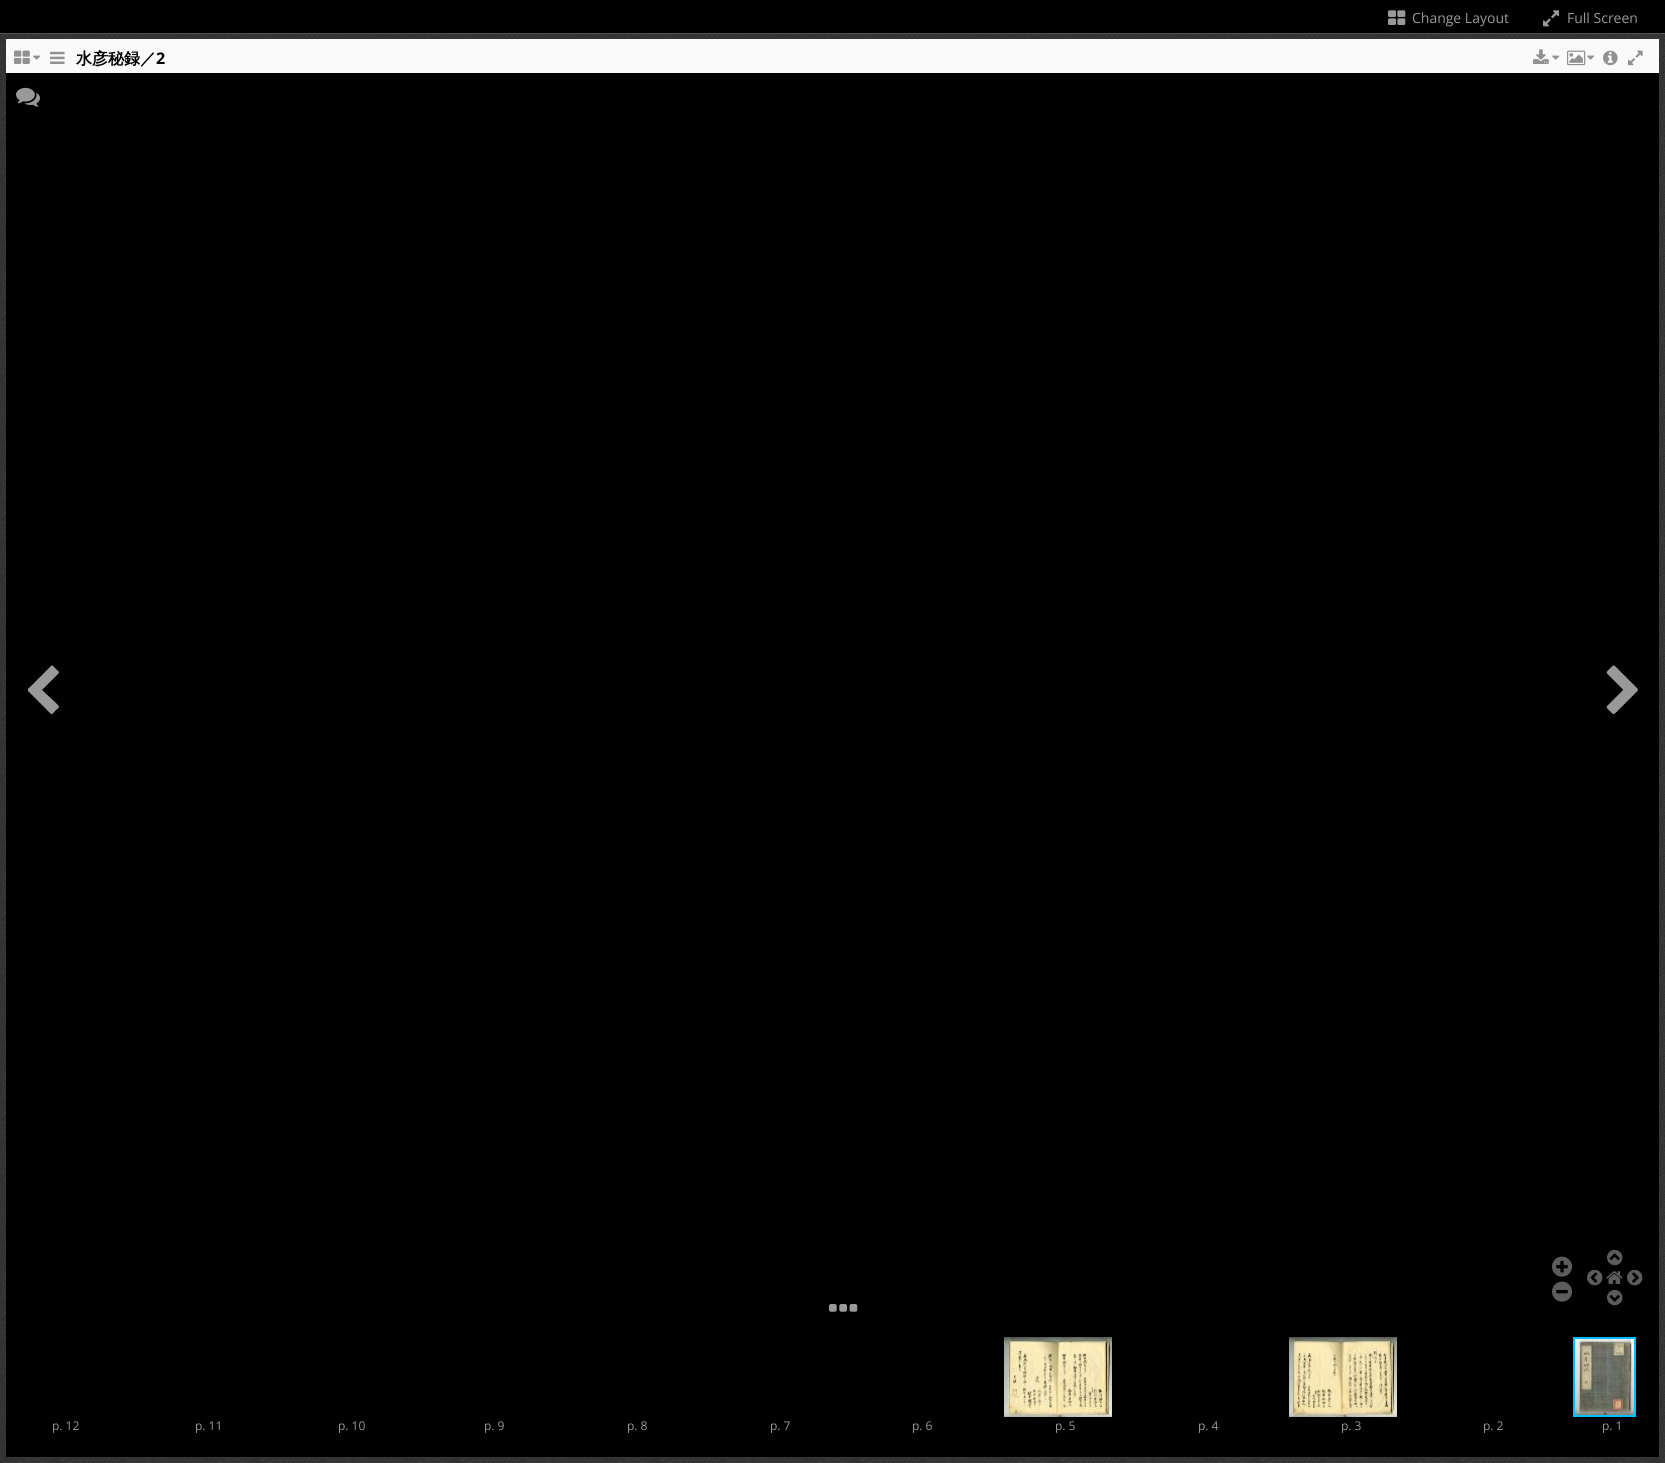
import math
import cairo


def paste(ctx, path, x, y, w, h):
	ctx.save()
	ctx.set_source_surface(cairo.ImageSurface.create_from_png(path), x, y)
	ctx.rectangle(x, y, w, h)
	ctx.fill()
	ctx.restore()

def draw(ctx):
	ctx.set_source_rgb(1, 1, 1)
	ctx.paint()
	paste(ctx, 'media/1.png', 0, 34, 1665, 1429)
	ctx.set_source_rgb(0, 0, 0)
	ctx.rectangle(0, 0, 1665, 33)
	ctx.fill()
	ctx.set_source_rgb(0.333, 0.333, 0.333)
	ctx.rectangle(0, 33, 1665, 1)
	ctx.fill()
	paste(ctx, 'media/2.png', 1388, 10, 18, 15)
	ctx.select_font_face('Open Sans')
	ctx.set_font_size(14)
	ctx.set_source_rgb(0.6, 0.6, 0.6)
	ctx.move_to(1412, 23)
	ctx.show_text('Change Layout')
	paste(ctx, 'media/3.png', 1543, 10, 16, 17)
	ctx.move_to(1567, 23)
	ctx.show_text('Full Screen')
	ctx.set_source_rgb(0.98, 0.98, 0.98)
	ctx.rectangle(6, 39, 1653, 34)
	ctx.fill()
	paste(ctx, 'media/4.png', 14, 50, 16, 14)
	paste(ctx, 'media/5.png', 33, 55, 8, 5)
	paste(ctx, 'media/6.png', 50, 51, 15, 13)
	ctx.select_font_face('WenQuanYi Zen Hei', cairo.FONT_SLANT_NORMAL, cairo.FONT_WEIGHT_BOLD)
	ctx.set_font_size(16)
	ctx.set_source_rgb(0, 0, 0)
	ctx.move_to(76, 64)
	ctx.show_text('水彦秘録／')
	ctx.select_font_face('Open Sans', cairo.FONT_SLANT_NORMAL, cairo.FONT_WEIGHT_BOLD)
	ctx.move_to(156, 64)
	ctx.show_text('2')
	paste(ctx, 'media/7.png', 1533, 49, 16, 15)
	paste(ctx, 'media/5.png', 1552, 55, 8, 5)
	paste(ctx, 'media/8.png', 1567, 50, 19, 16)
	paste(ctx, 'media/5.png', 1587, 55, 8, 5)
	paste(ctx, 'media/9.png', 1603, 50, 15, 16)
	paste(ctx, 'media/10.png', 1628, 50, 15, 16)
	ctx.rectangle(6, 73, 1653, 1384)
	ctx.fill()
	paste(ctx, 'media/11.png', 16, 87, 24, 20)
	ctx.set_source_rgb(0.6, 0.6, 0.6)
	ctx.new_path()
	ctx.move_to(58, 674)
	ctx.line_to(42, 690)
	ctx.line_to(56, 703)
	ctx.curve_to(60, 707, 60, 707, 56, 710)
	ctx.curve_to(51, 716, 52, 715, 47, 710)
	ctx.line_to(28, 691)
	ctx.line_to(28, 689)
	ctx.line_to(51, 666)
	ctx.curve_to(52, 664, 54, 667, 55, 668)
	ctx.line_to(59, 672)
	ctx.curve_to(59, 672, 59, 673, 58, 674)
	ctx.close_path()
	ctx.fill()
	paste(ctx, 'media/12.png', 1606, 665, 32, 49)
	paste(ctx, 'media/13.png', 1552, 1256, 20, 21)
	paste(ctx, 'media/14.png', 1587, 1269, 16, 17)
	paste(ctx, 'media/15.png', 1607, 1249, 16, 17)
	paste(ctx, 'media/16.png', 1627, 1269, 16, 17)
	paste(ctx, 'media/17.png', 1606, 1271, 17, 13)
	paste(ctx, 'media/18.png', 1552, 1281, 20, 21)
	paste(ctx, 'media/19.png', 1607, 1289, 16, 17)
	paste(ctx, 'media/20.png', 829, 1304, 29, 8)
	ctx.select_font_face('Open Sans')
	ctx.set_font_size(12)
	for x, y, s in [
		(52, 1430, 'p. 12'),
		(195, 1430, 'p. 11'),
		(338, 1430, 'p. 10'),
		(484, 1430, 'p. 9'),
		(627, 1430, 'p. 8'),
		(770, 1430, 'p. 7'),
		(912, 1430, 'p. 6'),
	]:
		ctx.move_to(x, y)
		ctx.show_text(s)
	paste(ctx, 'media/21.png', 1004, 1337, 108, 80)
	ctx.move_to(1055, 1430)
	ctx.show_text('p. 5')
	ctx.move_to(1198, 1430)
	ctx.show_text('p. 4')
	paste(ctx, 'media/22.png', 1289, 1337, 108, 80)
	ctx.move_to(1341, 1430)
	ctx.show_text('p. 3')
	ctx.move_to(1483, 1430)
	ctx.show_text('p. 2')
	ctx.rectangle(1574, 1338, 61, 78)
	ctx.set_source_rgb(0, 0.749, 1)
	ctx.stroke()
	paste(ctx, 'media/23.png', 1575, 1339, 59, 76)
	ctx.set_source_rgb(0.6, 0.6, 0.6)
	ctx.move_to(1602, 1430)
	ctx.show_text('p. 1')


surface = cairo.ImageSurface(cairo.FORMAT_RGB24, 1665, 1463)
ctx = cairo.Context(surface)
options = cairo.FontOptions()
options.set_hint_metrics(cairo.HINT_METRICS_OFF)
options.set_hint_style(cairo.HINT_STYLE_NONE)
ctx.set_font_options(options)
ctx.set_miter_limit(4)
draw(ctx)
surface.write_to_png('image.png')
